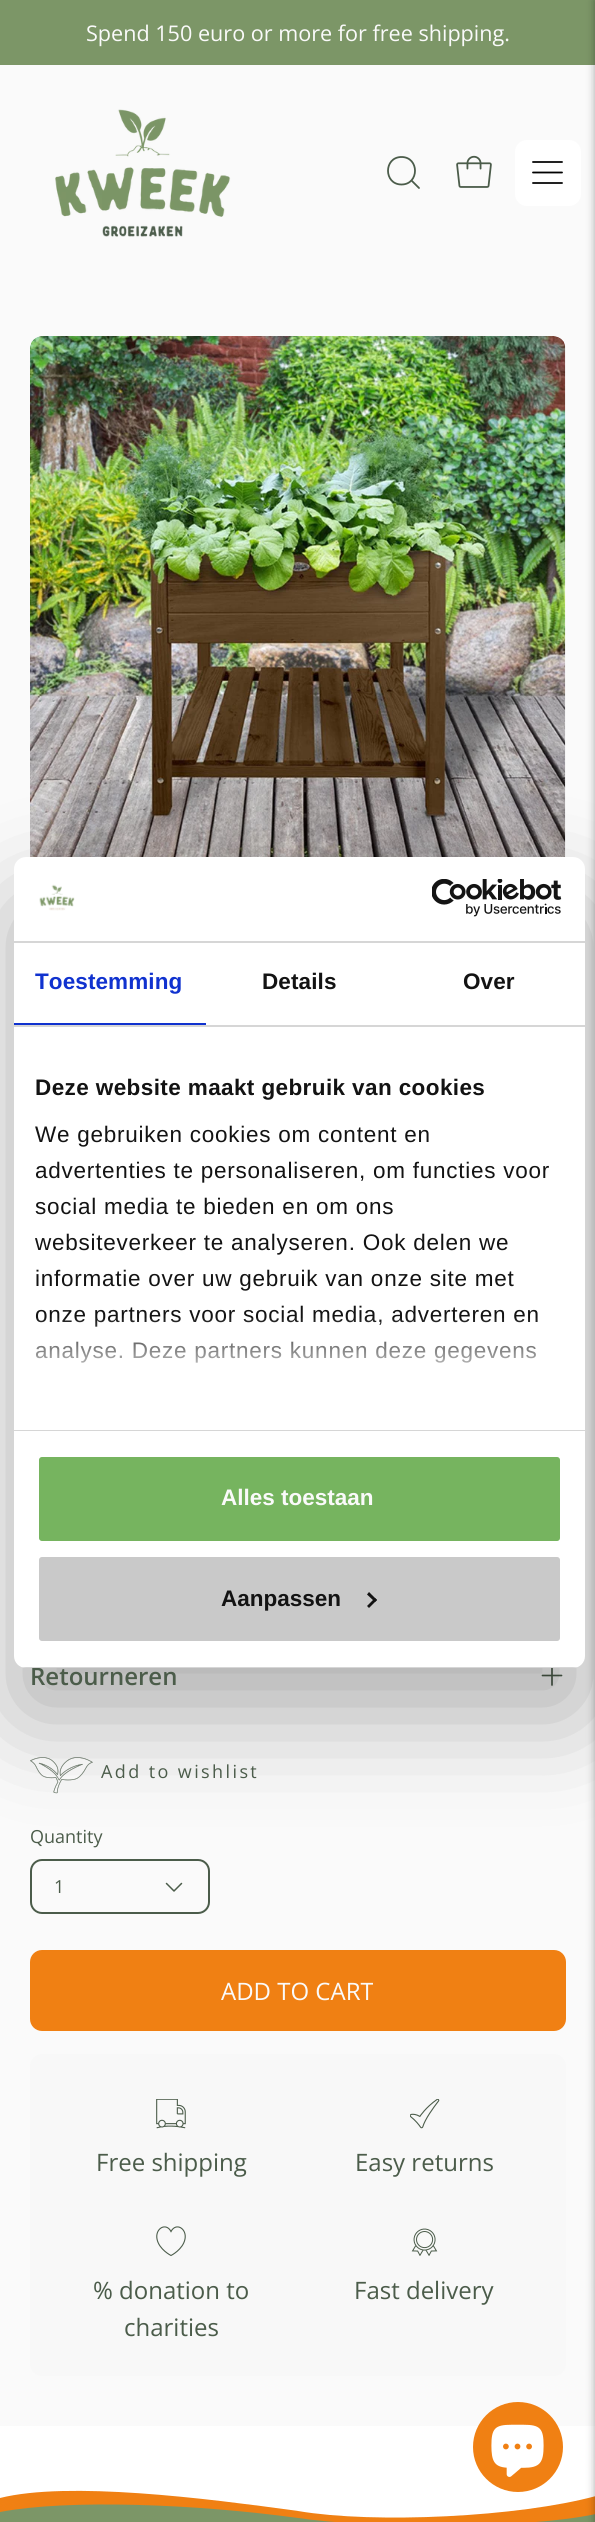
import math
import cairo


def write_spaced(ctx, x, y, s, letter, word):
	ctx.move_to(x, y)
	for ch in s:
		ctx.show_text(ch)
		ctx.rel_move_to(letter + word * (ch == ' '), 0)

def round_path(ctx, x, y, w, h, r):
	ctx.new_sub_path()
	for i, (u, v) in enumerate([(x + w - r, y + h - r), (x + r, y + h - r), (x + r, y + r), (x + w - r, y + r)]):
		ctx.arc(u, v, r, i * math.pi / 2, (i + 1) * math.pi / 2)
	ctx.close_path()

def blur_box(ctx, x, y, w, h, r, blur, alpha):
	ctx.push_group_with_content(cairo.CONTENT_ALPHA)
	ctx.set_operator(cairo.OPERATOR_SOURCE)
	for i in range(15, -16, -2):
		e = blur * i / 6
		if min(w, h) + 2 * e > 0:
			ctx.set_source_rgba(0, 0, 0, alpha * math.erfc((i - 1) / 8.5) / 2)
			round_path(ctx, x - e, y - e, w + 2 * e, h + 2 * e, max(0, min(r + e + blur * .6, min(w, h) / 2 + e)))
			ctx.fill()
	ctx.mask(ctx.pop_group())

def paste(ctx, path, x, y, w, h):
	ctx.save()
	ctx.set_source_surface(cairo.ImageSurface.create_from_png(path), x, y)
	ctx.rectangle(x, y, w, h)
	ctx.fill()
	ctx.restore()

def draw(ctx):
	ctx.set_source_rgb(0.98, 0.98, 0.98)
	ctx.paint()
	ctx.set_source_rgb(0.486, 0.588, 0.404)
	ctx.rectangle(0, 0, 595, 65)
	ctx.fill()
	ctx.select_font_face('Open Sans')
	ctx.set_font_size(21.6)
	ctx.set_source_rgb(0.98, 0.98, 0.98)
	ctx.move_to(86, 41)
	ctx.show_text('Spend 150 euro or more for free shipping.')
	ctx.set_source_rgb(1, 1, 1)
	ctx.rectangle(0, 2426, 595, 92)
	ctx.fill()
	ctx.set_source_rgb(0.941, 0.502, 0.075)
	ctx.new_path()
	ctx.move_to(0, 2498)
	ctx.curve_to(68, 2481, 204, 2498, 298, 2511)
	ctx.curve_to(374, 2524, 519, 2517, 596, 2496)
	ctx.line_to(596, 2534)
	ctx.line_to(0, 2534)
	ctx.fill()
	ctx.set_source_rgb(0.486, 0.588, 0.404)
	ctx.new_path()
	ctx.move_to(0, 2512)
	ctx.curve_to(68, 2499, 196, 2504, 298, 2518)
	ctx.curve_to(366, 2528, 519, 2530, 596, 2514)
	ctx.line_to(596, 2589)
	ctx.line_to(0, 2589)
	ctx.close_path()
	ctx.fill()
	ctx.set_source_rgb(0, 0, 0)
	blur_box(ctx, 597, 0, 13, 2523, 0, 5, 0.5)
	paste(ctx, 'media/1.png', 55, 109, 176, 128)
	ctx.new_path()
	ctx.move_to(401.5, 184.5)
	ctx.curve_to(419.5, 184.5, 419.5, 157, 401.5, 157)
	ctx.curve_to(383.5, 157, 383.5, 184.5, 401.5, 184.5)
	ctx.close_path()
	ctx.move_to(411.5, 180.5)
	ctx.line_to(419, 188)
	ctx.set_source_rgb(0.294, 0.361, 0.29)
	ctx.set_line_width(1.8)
	ctx.set_line_cap(cairo.LINE_CAP_ROUND)
	ctx.set_line_join(cairo.LINE_JOIN_ROUND)
	ctx.stroke()
	paste(ctx, 'media/2.png', 456, 155, 36, 33)
	ctx.set_source_rgb(1, 1, 1)
	round_path(ctx, 515, 140, 66, 66, 12)
	ctx.fill()
	ctx.new_path()
	ctx.move_to(533, 172.5)
	ctx.line_to(562, 172.5)
	ctx.move_to(533, 162)
	ctx.line_to(562, 162)
	ctx.move_to(533, 183)
	ctx.line_to(562, 183)
	ctx.set_source_rgb(0, 0, 0)
	ctx.stroke()
	paste(ctx, 'media/5.png', 30, 336, 536, 521)
	ctx.new_path()
	ctx.move_to(542.5, 1675.5)
	ctx.line_to(561.5, 1675.5)
	ctx.move_to(552, 1666)
	ctx.line_to(552, 1685)
	ctx.move_to(542.5, 1675.5)
	ctx.line_to(561.5, 1675.5)
	ctx.set_source_rgb(0.294, 0.361, 0.29)
	ctx.set_line_width(1.7)
	ctx.stroke()
	paste(ctx, 'media/6.png', 30, 1757, 63, 37)
	round_path(ctx, 31, 1860, 178, 53, 11)
	ctx.set_line_width(2)
	ctx.set_line_cap(cairo.LINE_CAP_BUTT)
	ctx.set_line_join(cairo.LINE_JOIN_MITER)
	ctx.stroke()
	ctx.set_source_rgb(0, 0, 0)
	blur_box(ctx, 14, 905, 571, 811, 12, 51, 0.3)
	ctx.select_font_face('Open Sans SemiBold')
	ctx.set_font_size(24)
	ctx.set_source_rgb(0.294, 0.361, 0.29)
	ctx.move_to(30, 1685)
	ctx.show_text('Retourneren')
	ctx.set_source_rgb(1, 1, 1)
	round_path(ctx, 14, 857, 571, 811, 12)
	ctx.fill()
	ctx.set_source_rgb(0.839, 0.839, 0.839)
	ctx.rectangle(14, 941, 571, 2)
	ctx.fill()
	paste(ctx, 'media/3.png', 39, 884, 36, 27)
	paste(ctx, 'media/4.png', 432, 879, 130, 38)
	ctx.rectangle(14, 1025, 571, 2)
	ctx.fill()
	ctx.set_source_rgb(0.063, 0.196, 0.812)
	ctx.rectangle(14, 1023, 192, 2)
	ctx.fill()
	ctx.select_font_face('Liberation Sans', cairo.FONT_SLANT_NORMAL, cairo.FONT_WEIGHT_BOLD)
	ctx.set_font_size(22.5)
	write_spaced(ctx, 35, 989, 'Toestemming', 0.1, 0)
	ctx.set_source_rgb(0.078, 0.078, 0.078)
	write_spaced(ctx, 262, 989, 'Details', 0.1, 0)
	write_spaced(ctx, 463, 989, 'Over', 0.1, 0)
	ctx.set_source_rgb(0.839, 0.839, 0.839)
	ctx.rectangle(14, 1430, 571, 1)
	ctx.fill()
	ctx.set_source_rgb(0.078, 0.078, 0.078)
	write_spaced(ctx, 35, 1095, 'Deze website maakt gebruik van cookies', 0.4, 0)
	ctx.select_font_face('Liberation Sans')
	for x, y, s in [
		(35, 1142, 'We gebruiken cookies om content en'),
		(35, 1178, 'advertenties te personaliseren, om functies voor'),
		(35, 1214, 'social media te bieden en om ons'),
		(35, 1250, 'websiteverkeer te analyseren. Ook delen we'),
		(35, 1286, 'informatie over uw gebruik van onze site met'),
		(35, 1322, 'onze partners voor social media, adverteren en'),
		(35, 1358, 'analyse. Deze partners kunnen deze gegevens'),
	]:
		write_spaced(ctx, x, y, s, 0.75, 0)
	gradient = cairo.LinearGradient(289, 1429, 289, 1316)
	gradient.add_color_stop_rgba(0, 1, 1, 1, 1)
	gradient.add_color_stop_rgba(0.5, 1, 1, 1, 0.8)
	gradient.add_color_stop_rgba(1, 1, 1, 1, 0)
	ctx.set_source(gradient)
	ctx.rectangle(35, 1318, 502, 45)
	ctx.fill()
	ctx.save()
	round_path(ctx, 14, 857, 571, 811, 12)
	ctx.clip()
	ctx.set_source_rgb(0.839, 0.839, 0.839)
	ctx.rectangle(14, 1667, 571, 1)
	ctx.fill()
	ctx.restore()
	ctx.set_source_rgb(0.463, 0.706, 0.373)
	round_path(ctx, 37.5, 1455.5, 524, 87, 4.5)
	ctx.fill_preserve()
	ctx.set_source_rgb(1, 1, 1)
	ctx.set_line_width(3)
	ctx.stroke()
	ctx.select_font_face('Liberation Sans', cairo.FONT_SLANT_NORMAL, cairo.FONT_WEIGHT_BOLD)
	ctx.set_source_rgb(0.98, 0.98, 0.98)
	ctx.move_to(221, 1505)
	ctx.show_text('Alles toestaan')
	ctx.set_source_rgb(0.788, 0.788, 0.788)
	round_path(ctx, 37.5, 1555.5, 524, 87, 4.5)
	ctx.fill_preserve()
	ctx.set_source_rgb(1, 1, 1)
	ctx.stroke()
	ctx.set_source_rgb(0.078, 0.078, 0.078)
	ctx.move_to(221, 1606)
	ctx.show_text('Aanpassen')
	ctx.new_path()
	ctx.move_to(369, 1592)
	ctx.line_to(377, 1600)
	ctx.line_to(375, 1602)
	ctx.line_to(367, 1594.5)
	ctx.close_path()
	ctx.fill()
	ctx.new_path()
	ctx.move_to(375, 1598)
	ctx.line_to(377, 1600)
	ctx.line_to(369, 1608)
	ctx.line_to(367, 1606)
	ctx.close_path()
	ctx.fill()
	ctx.select_font_face('Open Sans')
	ctx.set_font_size(18)
	ctx.set_source_rgb(0.294, 0.361, 0.29)
	write_spaced(ctx, 101, 1778, 'Add to wishlist', 2.4, 0)
	ctx.move_to(30, 1843)
	ctx.show_text('Quantity')
	ctx.move_to(54, 1893)
	ctx.show_text('1')
	ctx.new_path()
	ctx.move_to(181.5, 1883.5)
	ctx.line_to(174, 1891)
	ctx.line_to(166.5, 1883.5)
	ctx.set_line_width(1.5)
	ctx.set_line_cap(cairo.LINE_CAP_ROUND)
	ctx.set_line_join(cairo.LINE_JOIN_ROUND)
	ctx.stroke()
	ctx.set_source_rgb(0.941, 0.502, 0.075)
	round_path(ctx, 31, 1951, 534, 79, 11)
	ctx.fill_preserve()
	ctx.set_line_width(2)
	ctx.set_line_cap(cairo.LINE_CAP_BUTT)
	ctx.set_line_join(cairo.LINE_JOIN_MITER)
	ctx.stroke()
	ctx.set_font_size(24)
	ctx.set_source_rgb(0.98, 0.98, 0.98)
	ctx.move_to(221, 2000)
	ctx.show_text('ADD TO CART')
	ctx.set_source_rgb(0.969, 0.969, 0.969)
	round_path(ctx, 30, 2054, 536, 322, 12)
	ctx.fill()
	paste(ctx, 'media/7.png', 156, 2099, 30, 30)
	ctx.set_source_rgb(0.294, 0.361, 0.29)
	ctx.move_to(96, 2171)
	ctx.show_text('Free shipping')
	paste(ctx, 'media/8.png', 410, 2099, 30, 30)
	ctx.move_to(355, 2171)
	ctx.show_text('Easy returns')
	ctx.new_path()
	ctx.move_to(171, 2231.5)
	ctx.curve_to(166, 2222, 155, 2228.5, 157, 2239)
	ctx.curve_to(159, 2249.5, 171, 2255.5, 171, 2255.5)
	ctx.curve_to(171, 2255.5, 183, 2249.5, 185, 2239)
	ctx.curve_to(187, 2228.5, 176, 2222, 171, 2231.5)
	ctx.close_path()
	ctx.set_line_width(1.1)
	ctx.stroke()
	ctx.move_to(93, 2299)
	ctx.show_text('% donation to')
	ctx.move_to(124, 2336)
	ctx.show_text('charities')
	paste(ctx, 'media/9.png', 411, 2228, 27, 28)
	ctx.move_to(354, 2299)
	ctx.show_text('Fast delivery')
	ctx.set_source_rgb(0.941, 0.502, 0.075)
	ctx.new_path()
	ctx.arc(518, 2447, 45, 0, 2 * math.pi)
	ctx.fill()
	paste(ctx, 'media/10.png', 491, 2424, 53, 53)


surface = cairo.ImageSurface(cairo.FORMAT_RGB24, 595, 2522)
ctx = cairo.Context(surface)
options = cairo.FontOptions()
options.set_hint_metrics(cairo.HINT_METRICS_OFF)
options.set_hint_style(cairo.HINT_STYLE_NONE)
ctx.set_font_options(options)
ctx.set_miter_limit(4)
draw(ctx)
surface.write_to_png('image.png')
